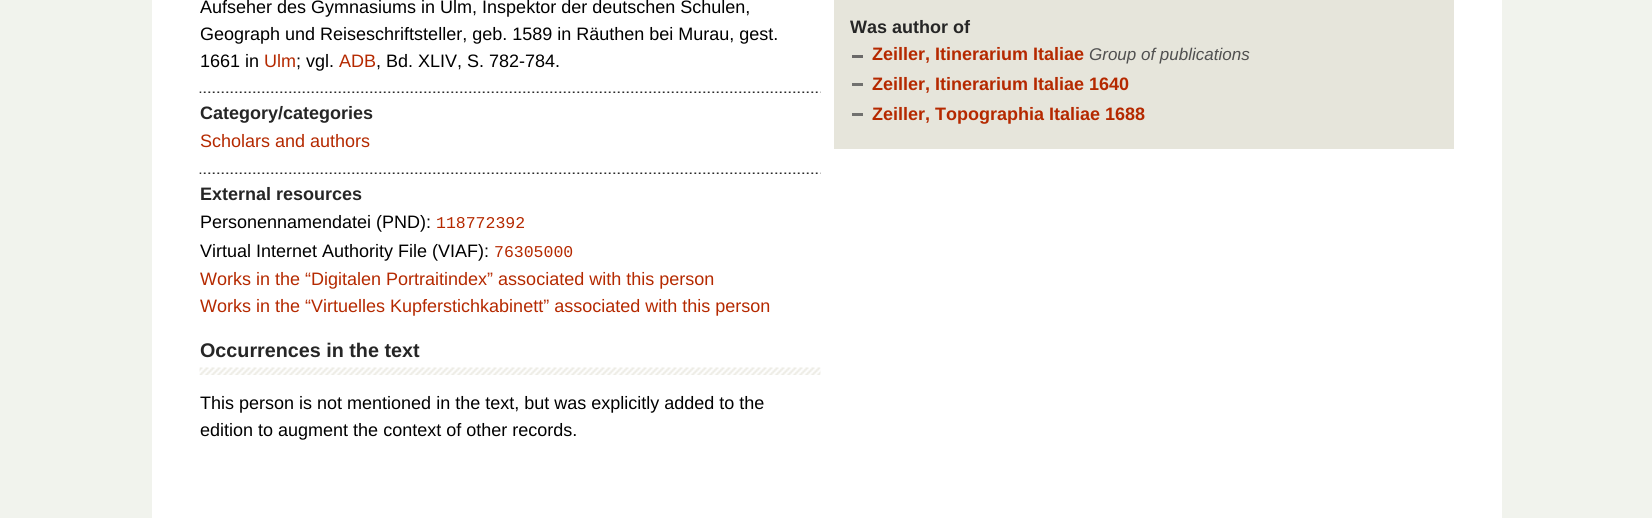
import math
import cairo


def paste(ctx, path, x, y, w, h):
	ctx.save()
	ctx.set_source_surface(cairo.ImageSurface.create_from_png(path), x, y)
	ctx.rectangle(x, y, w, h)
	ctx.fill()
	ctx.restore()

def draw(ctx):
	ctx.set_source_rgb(0.945, 0.953, 0.929)
	ctx.paint()
	ctx.set_source_rgb(1, 1, 1)
	ctx.rectangle(152, 0, 1350, 518)
	ctx.fill()
	ctx.select_font_face('Liberation Sans')
	ctx.set_font_size(18)
	ctx.set_source_rgb(0, 0, 0)
	for x, y, s in [
		(200, 13, 'Aufseher des Gymnasiums in Ulm, Inspektor der deutschen Schulen,'),
		(200, 40, 'Geograph und Reiseschriftsteller, geb. 1589 in Räuthen bei Murau, gest.'),
		(200, 67, '1661 in'),
	]:
		ctx.move_to(x, y)
		ctx.show_text(s)
	ctx.set_source_rgb(0.71, 0.161, 0)
	ctx.move_to(264, 67)
	ctx.show_text('Ulm')
	ctx.set_source_rgb(0, 0, 0)
	ctx.move_to(296, 67)
	ctx.show_text('; vgl.')
	ctx.set_source_rgb(0.71, 0.161, 0)
	ctx.move_to(339, 67)
	ctx.show_text('ADB')
	ctx.set_source_rgb(0, 0, 0)
	ctx.move_to(376, 67)
	ctx.show_text(', Bd. XLIV, S. 782-784.')
	paste(ctx, 'media/1.png', 199, 91, 622, 2)
	ctx.select_font_face('Liberation Sans', cairo.FONT_SLANT_NORMAL, cairo.FONT_WEIGHT_BOLD)
	ctx.set_source_rgb(0.149, 0.149, 0.149)
	ctx.move_to(200, 119)
	ctx.show_text('Category/categories')
	ctx.select_font_face('Liberation Sans')
	ctx.set_source_rgb(0.71, 0.161, 0)
	ctx.move_to(200, 147)
	ctx.show_text('Scholars and authors')
	paste(ctx, 'media/1.png', 199, 172, 622, 2)
	ctx.select_font_face('Liberation Sans', cairo.FONT_SLANT_NORMAL, cairo.FONT_WEIGHT_BOLD)
	ctx.set_source_rgb(0.149, 0.149, 0.149)
	ctx.move_to(200, 200)
	ctx.show_text('External resources')
	ctx.select_font_face('Liberation Sans')
	ctx.set_source_rgb(0, 0, 0)
	ctx.move_to(200, 228)
	ctx.show_text('Personennamendatei (PND):')
	ctx.select_font_face('Liberation Mono')
	ctx.set_font_size(16.5)
	ctx.set_source_rgb(0.71, 0.161, 0)
	ctx.move_to(436, 228)
	ctx.show_text('118772392')
	ctx.select_font_face('Liberation Sans')
	ctx.set_font_size(18)
	ctx.set_source_rgb(0, 0, 0)
	ctx.move_to(200, 257)
	ctx.show_text('Virtual Internet Authority File (VIAF):')
	ctx.select_font_face('Liberation Mono')
	ctx.set_font_size(16.5)
	ctx.set_source_rgb(0.71, 0.161, 0)
	ctx.move_to(494, 257)
	ctx.show_text('76305000')
	ctx.select_font_face('Liberation Sans')
	ctx.set_font_size(18)
	ctx.move_to(200, 285)
	ctx.show_text('Works in the “Digitalen Portraitindex” associated with this person')
	ctx.move_to(200, 312)
	ctx.show_text('Works in the “Virtuelles Kupferstichkabinett” associated with this person')
	paste(ctx, 'media/2.png', 199, 367, 622, 8)
	ctx.select_font_face('Liberation Sans', cairo.FONT_SLANT_NORMAL, cairo.FONT_WEIGHT_BOLD)
	ctx.set_font_size(19.75)
	ctx.set_source_rgb(0.149, 0.149, 0.149)
	ctx.move_to(200, 357)
	ctx.show_text('Occurrences in the text')
	ctx.select_font_face('Liberation Sans')
	ctx.set_font_size(18)
	ctx.set_source_rgb(0, 0, 0)
	ctx.move_to(200, 409)
	ctx.show_text('This person is not mentioned in the text, but was explicitly added to the')
	ctx.move_to(200, 436)
	ctx.show_text('edition to augment the context of other records.')
	ctx.set_source_rgb(0.902, 0.898, 0.859)
	ctx.rectangle(834, 0, 620, 149)
	ctx.fill()
	ctx.select_font_face('Liberation Sans', cairo.FONT_SLANT_NORMAL, cairo.FONT_WEIGHT_BOLD)
	ctx.set_source_rgb(0.149, 0.149, 0.149)
	ctx.move_to(850, 33)
	ctx.show_text('Was author of')
	ctx.set_source_rgb(0.416, 0.412, 0.408)
	ctx.rectangle(852, 55, 11, 3)
	ctx.fill()
	ctx.set_source_rgb(0.71, 0.161, 0)
	ctx.move_to(872, 60)
	ctx.show_text('Zeiller, Itinerarium Italiae')
	ctx.select_font_face('Liberation Sans', cairo.FONT_SLANT_ITALIC)
	ctx.set_font_size(17)
	ctx.set_source_rgb(0.314, 0.314, 0.314)
	ctx.move_to(1089, 60)
	ctx.show_text('Group of publications')
	ctx.set_source_rgb(0.443, 0.443, 0.435)
	ctx.rectangle(852, 83, 11, 3)
	ctx.fill()
	ctx.select_font_face('Liberation Sans', cairo.FONT_SLANT_NORMAL, cairo.FONT_WEIGHT_BOLD)
	ctx.set_font_size(18)
	ctx.set_source_rgb(0.71, 0.161, 0)
	ctx.move_to(872, 90)
	ctx.show_text('Zeiller, Itinerarium Italiae 1640')
	ctx.set_source_rgb(0.443, 0.443, 0.435)
	ctx.rectangle(852, 113, 11, 3)
	ctx.fill()
	ctx.set_source_rgb(0.71, 0.161, 0)
	ctx.move_to(872, 120)
	ctx.show_text('Zeiller, Topographia Italiae 1688')


surface = cairo.ImageSurface(cairo.FORMAT_RGB24, 1652, 518)
ctx = cairo.Context(surface)
options = cairo.FontOptions()
options.set_hint_metrics(cairo.HINT_METRICS_OFF)
options.set_hint_style(cairo.HINT_STYLE_NONE)
ctx.set_font_options(options)
ctx.set_miter_limit(4)
draw(ctx)
surface.write_to_png('image.png')
